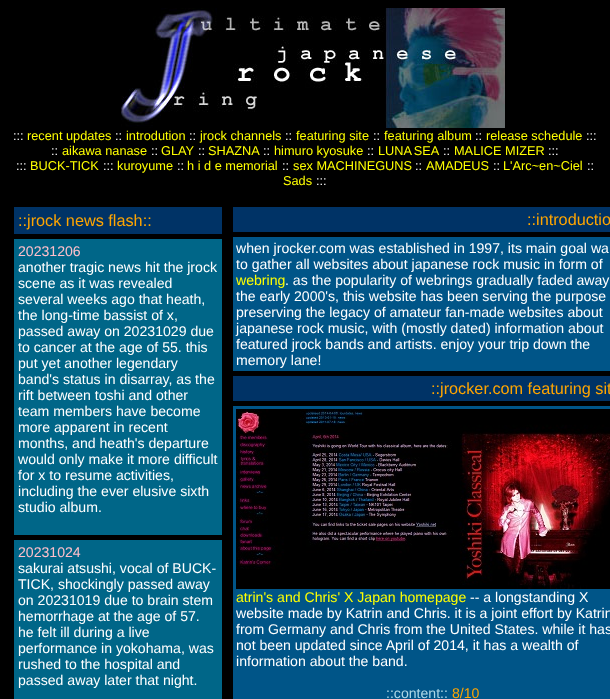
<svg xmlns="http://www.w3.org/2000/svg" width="610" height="699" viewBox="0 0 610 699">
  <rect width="100%" height="100%" fill="rgb(0,0,0)"/>
  <image x="121" y="8" width="384" height="120" href="pic1.png"/>
  <text x="13" y="140" font-family="Liberation Sans" font-size="12.75" fill="rgb(255,255,255)">:::</text>
  <text x="27" y="140" font-family="Liberation Sans" font-size="12.75" fill="rgb(255,255,0)">recent updates</text>
  <text x="115" y="140" font-family="Liberation Sans" font-size="12.75" fill="rgb(255,255,255)">::</text>
  <text x="126" y="140" font-family="Liberation Sans" font-size="12.75" fill="rgb(255,255,0)">introdution</text>
  <text x="189" y="140" font-family="Liberation Sans" font-size="12.75" fill="rgb(255,255,255)">::</text>
  <text x="200" y="140" font-family="Liberation Sans" font-size="12.75" fill="rgb(255,255,0)">jrock channels</text>
  <text x="285" y="140" font-family="Liberation Sans" font-size="12.75" fill="rgb(255,255,255)">::</text>
  <text x="296" y="140" font-family="Liberation Sans" font-size="12.75" fill="rgb(255,255,0)">featuring site</text>
  <text x="373" y="140" font-family="Liberation Sans" font-size="12.75" fill="rgb(255,255,255)">::</text>
  <text x="384" y="140" font-family="Liberation Sans" font-size="12.75" fill="rgb(255,255,0)">featuring album</text>
  <text x="475" y="140" font-family="Liberation Sans" font-size="12.75" fill="rgb(255,255,255)">::</text>
  <text x="486" y="140" font-family="Liberation Sans" font-size="12.75" fill="rgb(255,255,0)">release schedule</text>
  <g font-family="Liberation Sans" font-size="12.75" fill="rgb(255,255,255)">
    <text x="586" y="140">:::</text>
    <text x="51" y="155">::</text>
  </g>
  <text x="62" y="155" font-family="Liberation Sans" font-size="12.75" fill="rgb(255,255,0)">aikawa nanase</text>
  <text x="151" y="155" font-family="Liberation Sans" font-size="12.75" fill="rgb(255,255,255)">::</text>
  <text x="161" y="155" font-family="Liberation Sans" font-size="12.75" fill="rgb(255,255,0)">GLAY</text>
  <text x="198" y="155" font-family="Liberation Sans" font-size="12.75" fill="rgb(255,255,255)">::</text>
  <text x="208" y="155" font-family="Liberation Sans" font-size="12.75" fill="rgb(255,255,0)">SHAZNA</text>
  <text x="263" y="155" font-family="Liberation Sans" font-size="12.75" fill="rgb(255,255,255)">::</text>
  <text x="274" y="155" font-family="Liberation Sans" font-size="12.75" fill="rgb(255,255,0)">himuro kyosuke</text>
  <text x="367" y="155" font-family="Liberation Sans" font-size="12.75" fill="rgb(255,255,255)">::</text>
  <text x="378" y="155" word-spacing="-1" font-family="Liberation Sans" font-size="12.75" fill="rgb(255,255,0)">LUNA SEA</text>
  <text x="443" y="155" font-family="Liberation Sans" font-size="12.75" fill="rgb(255,255,255)">::</text>
  <text x="454" y="155" font-family="Liberation Sans" font-size="12.75" fill="rgb(255,255,0)">MALICE MIZER</text>
  <g font-family="Liberation Sans" font-size="12.75" fill="rgb(255,255,255)">
    <text x="548" y="155">:::</text>
    <text x="16" y="170">:::</text>
  </g>
  <text x="30" y="170" font-family="Liberation Sans" font-size="12.75" fill="rgb(255,255,0)">BUCK-TICK</text>
  <text x="103" y="170" font-family="Liberation Sans" font-size="12.75" fill="rgb(255,255,255)">:::</text>
  <text x="117" y="170" font-family="Liberation Sans" font-size="12.75" fill="rgb(255,255,0)">kuroyume</text>
  <text x="177" y="170" font-family="Liberation Sans" font-size="12.75" fill="rgb(255,255,255)">::</text>
  <text x="187" y="170" font-family="Liberation Sans" font-size="12.75" fill="rgb(255,255,0)">h i d e memorial</text>
  <text x="282" y="170" font-family="Liberation Sans" font-size="12.75" fill="rgb(255,255,255)">::</text>
  <text x="293" y="170" font-family="Liberation Sans" font-size="12.75" fill="rgb(255,255,0)">sex MACHINEGUNS</text>
  <text x="415" y="170" font-family="Liberation Sans" font-size="12.75" fill="rgb(255,255,255)">::</text>
  <text x="426" y="170" font-family="Liberation Sans" font-size="12.75" fill="rgb(255,255,0)">AMADEUS</text>
  <text x="493" y="170" font-family="Liberation Sans" font-size="12.75" fill="rgb(255,255,255)">::</text>
  <text x="503" y="170" font-family="Liberation Sans" font-size="12.75" fill="rgb(255,255,0)">L'Arc~en~Ciel</text>
  <text x="587" y="170" font-family="Liberation Sans" font-size="12.75" fill="rgb(255,255,255)">::</text>
  <text x="283" y="185" font-family="Liberation Sans" font-size="12.75" fill="rgb(255,255,0)">Sads</text>
  <text x="316" y="185" font-family="Liberation Sans" font-size="12.75" fill="rgb(255,255,255)">:::</text>
  <rect x="14" y="207" width="208" height="27" fill="rgb(0,51,102)"/>
  <text x="18" y="226" font-family="Liberation Sans" font-size="16.25" fill="rgb(255,165,0)">::jrock news flash::</text>
  <rect x="14" y="239" width="208" height="296" fill="rgb(0,102,136)"/>
  <text x="18" y="256" font-family="Liberation Sans" font-size="14.1" fill="rgb(255,192,203)">20231206</text>
  <g font-family="Liberation Sans" font-size="14.1" fill="rgb(255,255,255)">
    <text>
      <tspan x="18" y="272">another tragic news hit the jrock</tspan>
      <tspan x="18" y="288">scene as it was revealed</tspan>
      <tspan x="18" y="304">several weeks ago that heath,</tspan>
      <tspan x="18" y="320">the long-time bassist of x,</tspan>
      <tspan x="18" y="336">passed away on 20231029 due</tspan>
      <tspan x="18" y="352">to cancer at the age of 55. this</tspan>
      <tspan x="18" y="368">put yet another legendary</tspan>
      <tspan x="18" y="384">band's status in disarray, as the</tspan>
      <tspan x="18" y="400">rift between toshi and other</tspan>
      <tspan x="18" y="416">team members have become</tspan>
      <tspan x="18" y="432">more apparent in recent</tspan>
      <tspan x="18" y="448">months, and heath's departure</tspan>
      <tspan x="18" y="464">would only make it more difficult</tspan>
      <tspan x="18" y="480">for x to resume activities,</tspan>
      <tspan x="18" y="496">including the ever elusive sixth</tspan>
      <tspan x="18" y="512">studio album.</tspan>
    </text>
  </g>
  <rect x="14" y="540" width="208" height="159" fill="rgb(0,102,136)"/>
  <text x="18" y="557" font-family="Liberation Sans" font-size="14.1" fill="rgb(255,192,203)">20231024</text>
  <g font-family="Liberation Sans" font-size="14.1" fill="rgb(255,255,255)">
    <text>
      <tspan x="18" y="573">sakurai atsushi, vocal of BUCK-</tspan>
      <tspan x="18" y="589">TICK, shockingly passed away</tspan>
      <tspan x="18" y="605">on 20231019 due to brain stem</tspan>
      <tspan x="18" y="621">hemorrhage at the age of 57.</tspan>
      <tspan x="18" y="637">he felt ill during a live</tspan>
      <tspan x="18" y="653">performance in yokohama, was</tspan>
      <tspan x="18" y="669">rushed to the hospital and</tspan>
      <tspan x="18" y="685">passed away later that night.</tspan>
    </text>
  </g>
  <rect x="233" y="207" width="377" height="25" fill="rgb(0,51,102)"/>
  <text x="527" y="225" font-family="Liberation Sans" font-size="16.25" fill="rgb(255,165,0)">::introductio</text>
  <rect x="233" y="237" width="377" height="134" fill="rgb(0,85,136)"/>
  <g font-family="Liberation Sans" font-size="14.1" fill="rgb(255,255,255)">
    <text>
      <tspan x="236" y="253">when jrocker.com was established in 1997, its main goal wa</tspan>
      <tspan x="236" y="269">to gather all websites about japanese rock music in form of</tspan>
    </text>
  </g>
  <text x="236" y="285" font-family="Liberation Sans" font-size="14.1" fill="rgb(255,255,0)">webring</text>
  <g font-family="Liberation Sans" font-size="14.1" fill="rgb(255,255,255)">
    <text x="285" y="285">. as the popularity of webrings gradually faded away</text>
    <text>
      <tspan x="236" y="301">the early 2000's, this website has been serving the purpose</tspan>
      <tspan x="236" y="317">preserving the legacy of amateur fan-made websites about</tspan>
      <tspan x="236" y="333">japanese rock music, with (mostly dated) information about</tspan>
      <tspan x="236" y="349">featured jrock bands and artists. enjoy your trip down the</tspan>
      <tspan x="236" y="365">memory lane!</tspan>
    </text>
  </g>
  <rect x="233" y="376" width="377" height="25" fill="rgb(0,51,102)"/>
  <text x="431" y="394" font-family="Liberation Sans" font-size="16.25" fill="rgb(255,165,0)">::jrocker.com featuring sit</text>
  <rect x="233" y="406" width="377" height="293" fill="rgb(0,85,136)"/>
  <image x="236" y="409" width="374" height="180" href="pic2.png"/>
  <text x="236" y="602" font-family="Liberation Sans" font-size="14.1" fill="rgb(255,255,0)">atrin's and Chris' X Japan homepage</text>
  <g font-family="Liberation Sans" font-size="14.1" fill="rgb(255,255,255)">
    <text x="470" y="602">-- a longstanding X</text>
    <text>
      <tspan x="236" y="618">website made by Katrin and Chris. it is a joint effort by Katrin</tspan>
      <tspan x="236" y="634">from Germany and Chris from the United States. while it has</tspan>
      <tspan x="236" y="650">not been updated since April of 2014, it has a wealth of</tspan>
      <tspan x="236" y="666">information about the band.</tspan>
    </text>
  </g>
  <text x="386" y="698" font-family="Liberation Sans" font-size="14.1" fill="rgb(173,216,230)">::content::</text>
  <text x="452" y="698" font-family="Liberation Sans" font-size="14.1" fill="rgb(255,165,0)">8/10</text>
</svg>
